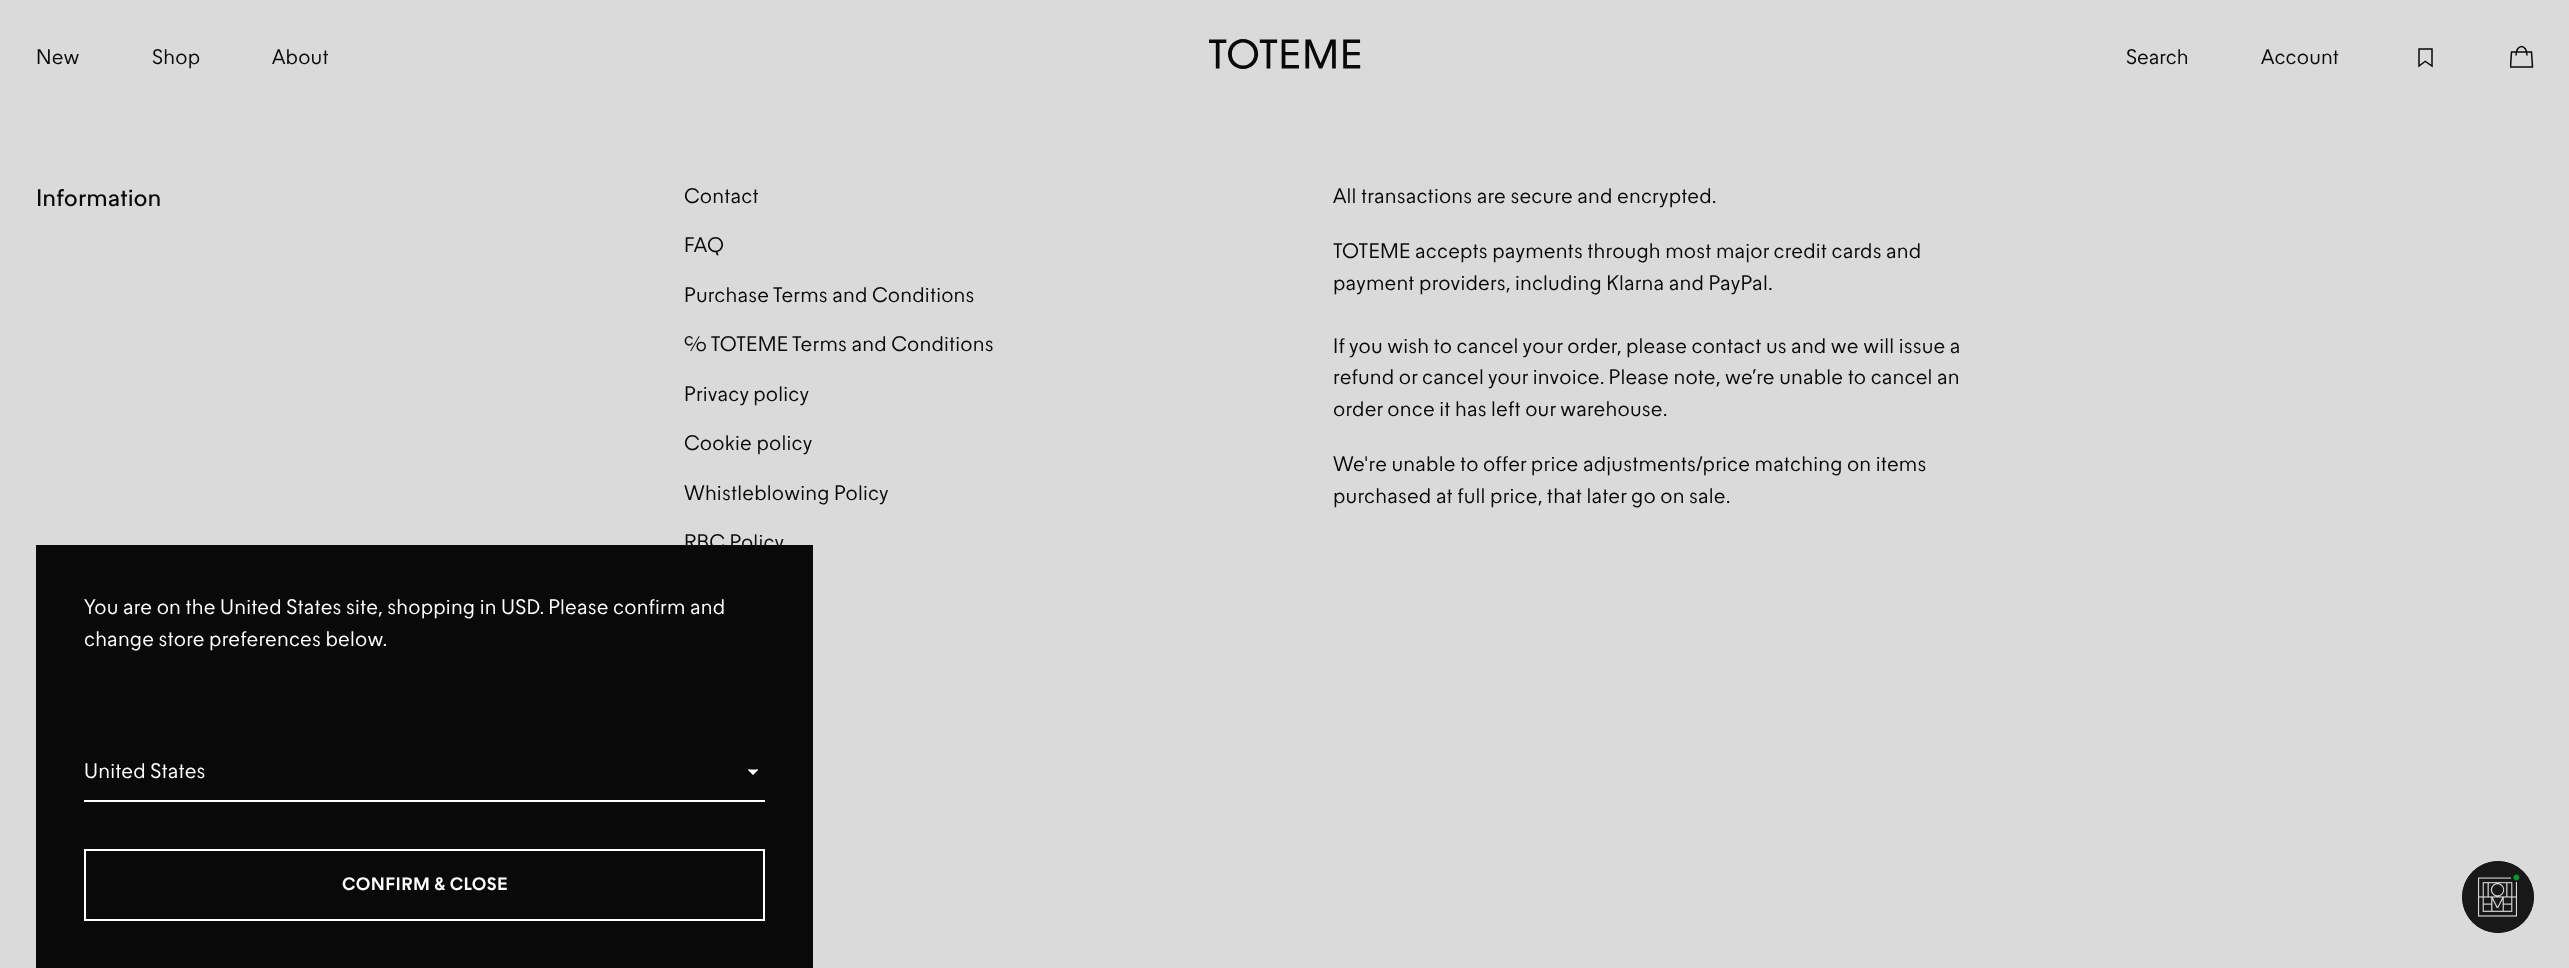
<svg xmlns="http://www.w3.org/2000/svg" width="2569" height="968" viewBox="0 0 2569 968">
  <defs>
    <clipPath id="clip1"><rect x="2510" y="45" width="24" height="24"/></clipPath>
  </defs>
  <rect width="100%" height="100%" fill="rgb(218,218,218)"/>
  <g font-family="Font" font-size="21" font-weight="300" letter-spacing="0.2" fill="rgb(9,9,9)">
    <text x="36" y="64">New</text>
    <text x="152" y="64">Shop</text>
    <text x="272" y="64">About</text>
  </g>
  <image x="1209" y="39" width="152" height="30" href="pic1.png"/>
  <text x="2126" y="64" font-family="Font" font-size="21" font-weight="300" fill="rgb(9,9,9)">Search</text>
  <text x="2261" y="64" font-family="Font" font-size="21" font-weight="300" letter-spacing="0.2" fill="rgb(9,9,9)">Account</text>
  <path d="M2425 61.5L2419 66V49H2432V66L2425.5 61.5Z" fill="none" stroke="rgb(9,9,9)" stroke-width="1.5"/>
  <g clip-path="url(#clip1)">
    <path d="M2511.5 52H2531.5L2532.5 67H2510.5Z" fill="none" stroke="rgb(9,9,9)" stroke-width="1.5"/>
  </g>
  <path d="M2527 55.5C2527 43.5 2516 43.5 2516 55.5" fill="none" stroke="rgb(9,9,9)" stroke-width="1.5"/>
  <text x="36" y="206" font-family="Font" font-size="24" fill="rgb(9,9,9)">Information</text>
  <g font-family="Font" font-size="21" font-weight="300" letter-spacing="0.2" fill="rgb(9,9,9)">
    <text x="684" y="203">Contact</text>
    <text x="684" y="252">FAQ</text>
    <text x="684" y="302">Purchase Terms and Conditions</text>
    <text x="684" y="351">℅ TOTEME Terms and Conditions</text>
    <text x="684" y="401">Privacy policy</text>
    <text x="684" y="450">Cookie policy</text>
    <text x="684" y="500">Whistleblowing Policy</text>
    <text x="684" y="549">RBC Policy</text>
    <text x="1333" y="203">All transactions are secure and encrypted.</text>
    <text>
      <tspan x="1333" y="258">TOTEME accepts payments through most major credit cards and</tspan>
      <tspan x="1333" y="290">payment providers, including Klarna and PayPal.</tspan>
    </text>
    <text>
      <tspan x="1333" y="353">If you wish to cancel your order, please contact us and we will issue a</tspan>
      <tspan x="1333" y="384">refund or cancel your invoice. Please note, we’re unable to cancel an</tspan>
      <tspan x="1333" y="416">order once it has left our warehouse.</tspan>
    </text>
    <text>
      <tspan x="1333" y="471">We're unable to offer price adjustments/price matching on items</tspan>
      <tspan x="1333" y="503">purchased at full price, that later go on sale.</tspan>
    </text>
  </g>
  <rect x="36" y="545" width="777" height="423" fill="rgb(9,9,9)"/>
  <g font-family="Font" font-size="21" font-weight="300" letter-spacing="0.2" fill="rgb(255,255,255)">
    <text>
      <tspan x="84" y="614">You are on the United States site, shopping in USD. Please confirm and</tspan>
      <tspan x="84" y="646">change store preferences below.</tspan>
    </text>
  </g>
  <rect x="84" y="800" width="681" height="2" fill="rgb(255,255,255)"/>
  <text x="84" y="778" font-family="Font" font-size="21" font-weight="300" letter-spacing="0.2" fill="rgb(255,255,255)">United States</text>
  <image x="748" y="769" width="10" height="6" href="pic2.png"/>
  <rect x="85" y="850" width="679" height="70" fill="none" stroke="rgb(255,255,255)" stroke-width="2"/>
  <text x="342" y="890" font-family="Font" font-size="18" font-weight="bold" letter-spacing="0.4" fill="rgb(255,255,255)">CONFIRM &amp; CLOSE</text>
  <circle cx="2498" cy="897" r="36" fill="rgb(24,24,24)"/>
  <image x="2462" y="861" width="72" height="72" href="pic3.png"/>
</svg>
